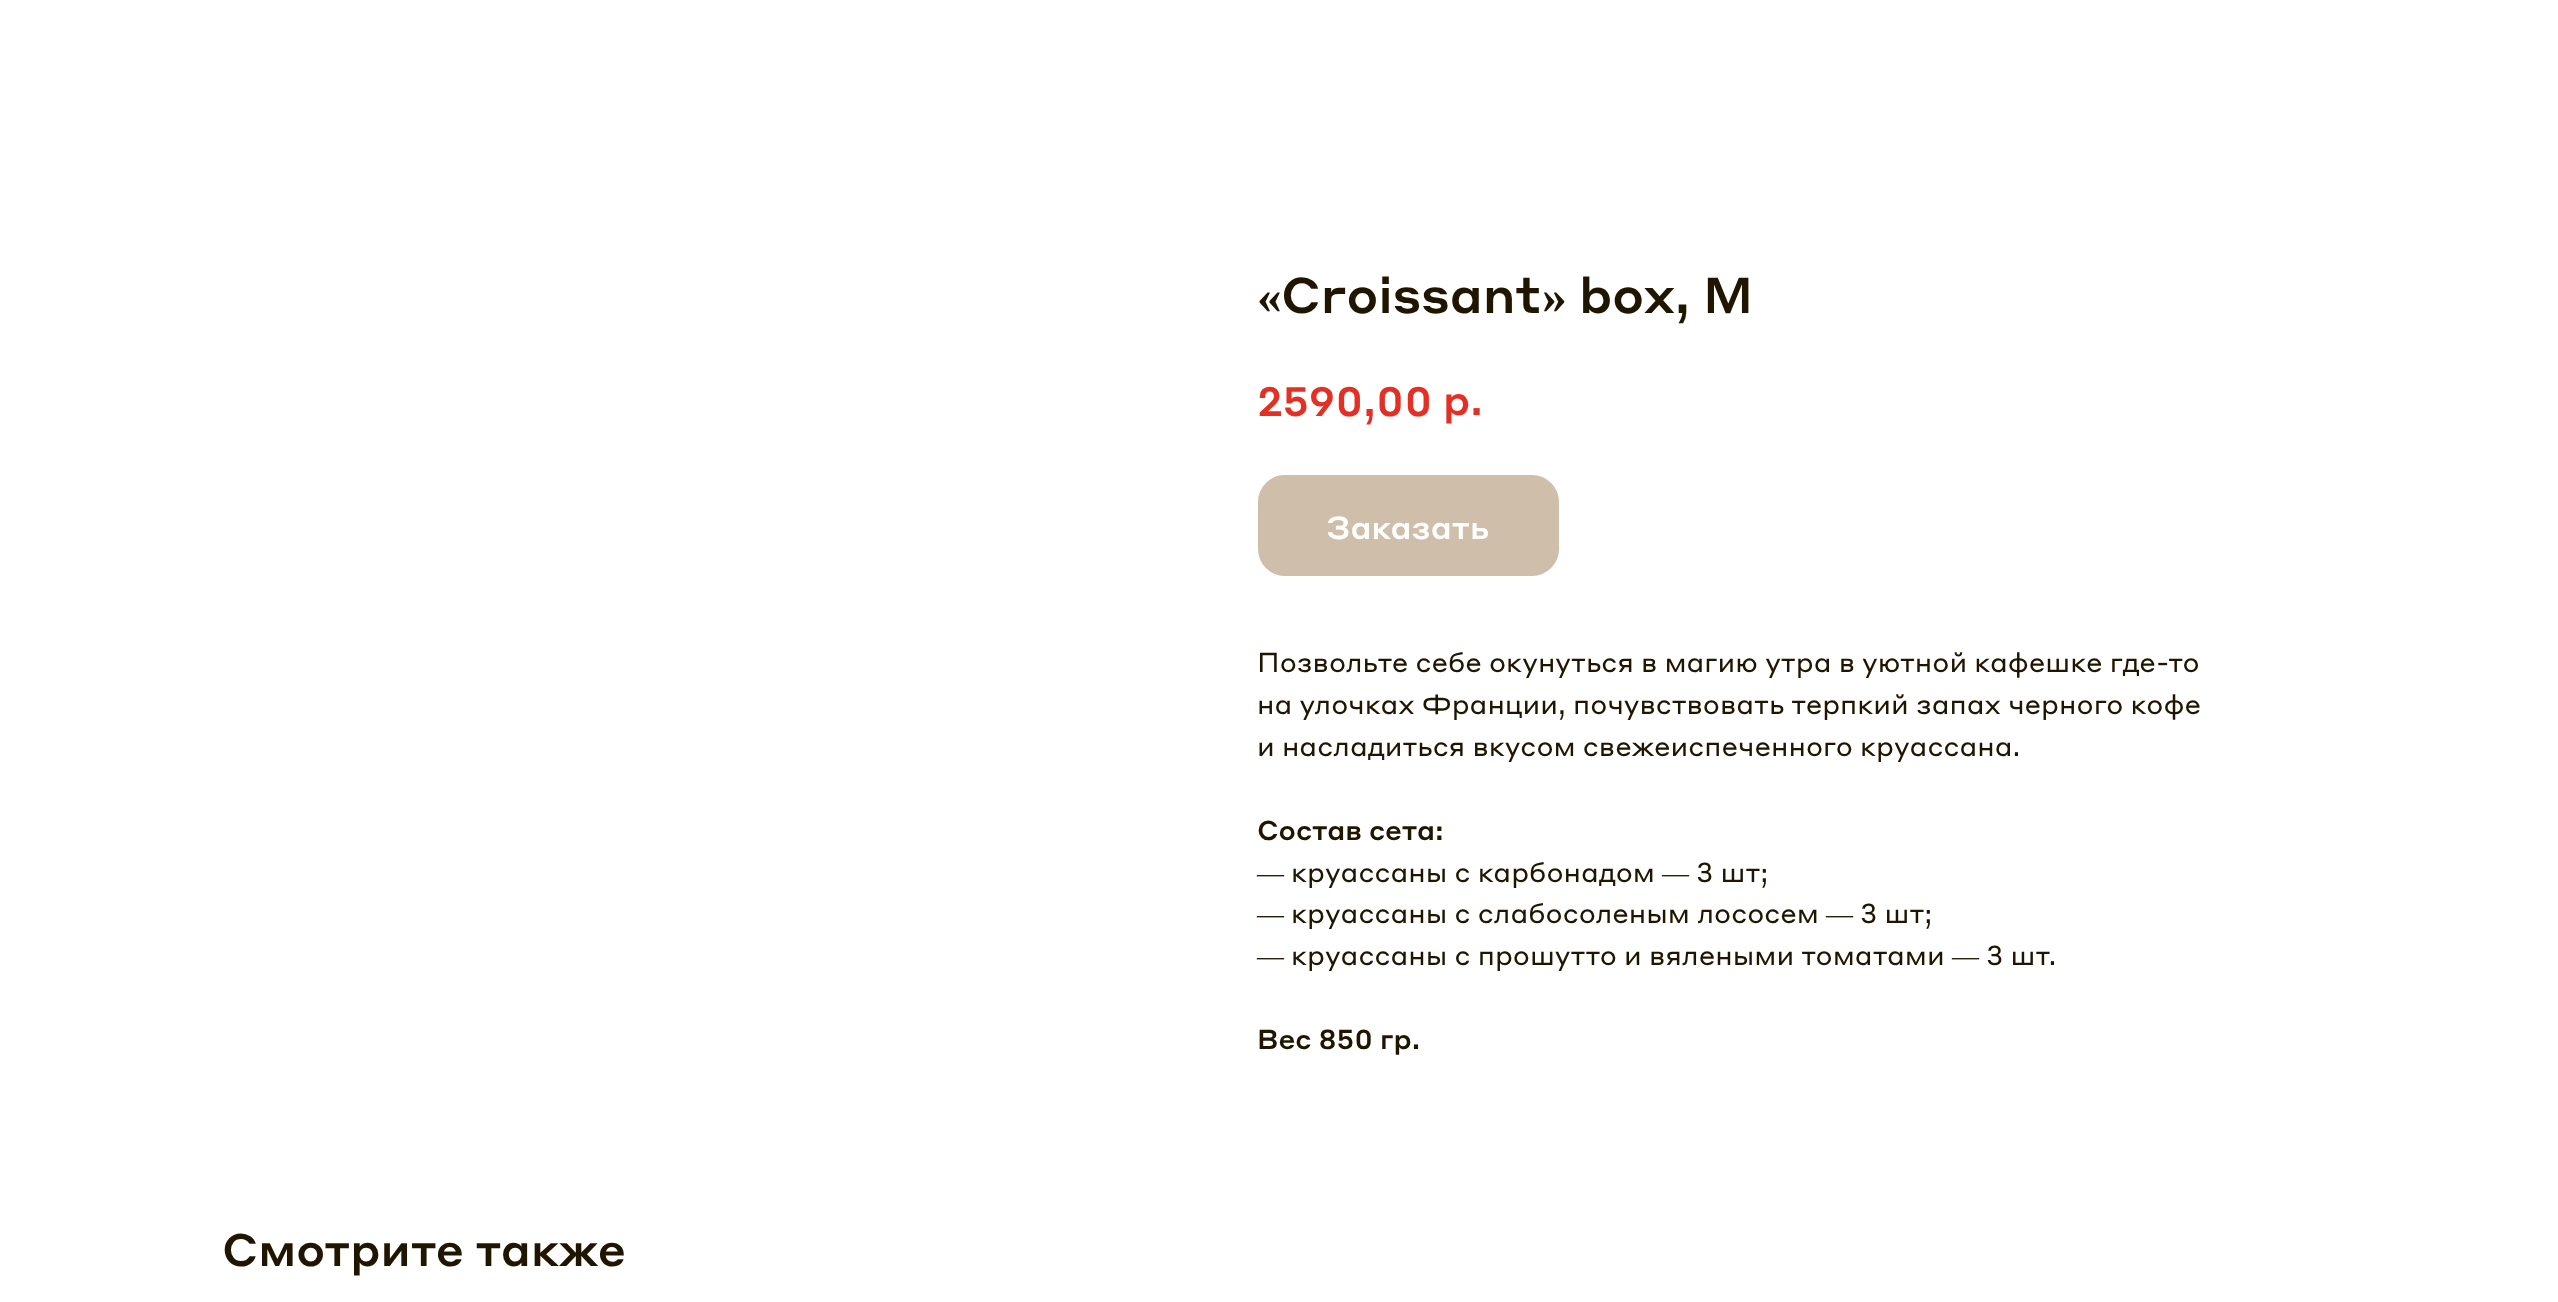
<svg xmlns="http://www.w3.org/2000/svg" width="2558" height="1302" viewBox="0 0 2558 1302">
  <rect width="100%" height="100%" fill="rgb(255,255,255)"/>
  <text x="1257" y="313" font-family="Liberation Serif" font-size="49.5" font-weight="bold" fill="rgb(32,22,0)">«</text>
  <text x="1281" y="313" font-family="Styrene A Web" font-size="49.5" font-weight="500" fill="rgb(32,22,0)">Croissant</text>
  <text x="1542" y="313" font-family="Liberation Serif" font-size="49.5" font-weight="bold" fill="rgb(32,22,0)">»</text>
  <text x="1579" y="313" font-family="Styrene A Web" font-size="49.5" font-weight="500" fill="rgb(32,22,0)">box, М</text>
  <g font-family="Styrene A Web" font-size="40.5" font-weight="500" fill="rgb(228,48,36)">
    <text x="1257" y="416">2590,00</text>
    <text x="1443" y="415">р.</text>
  </g>
  <rect x="1259" y="476" width="299" height="99" rx="26" fill="rgb(207,190,169)" stroke="rgb(207,190,169)" stroke-width="2"/>
  <text x="1326" y="539" font-family="Styrene A Web" font-size="31.5" font-weight="500" fill="rgb(255,255,255)">Заказать</text>
  <g font-family="Styrene A Web" font-size="27" fill="rgb(32,22,0)">
    <text>
      <tspan x="1257" y="672">Позвольте себе окунуться в магию утра в уютной кафешке где-то</tspan>
      <tspan x="1257" y="714">на улочках Франции, почувствовать терпкий запах черного кофе</tspan>
      <tspan x="1257" y="756">и насладиться вкусом свежеиспеченного круассана.</tspan>
    </text>
  </g>
  <text x="1257" y="840" font-family="Styrene A Web" font-size="27" font-weight="500" fill="rgb(32,22,0)">Состав сета:</text>
  <text x="1257" y="882" font-family="Liberation Serif" font-size="27" fill="rgb(32,22,0)">—</text>
  <text x="1291" y="882" font-family="Styrene A Web" font-size="27" fill="rgb(32,22,0)">круассаны с карбонадом</text>
  <text x="1662" y="882" font-family="Liberation Serif" font-size="27" fill="rgb(32,22,0)">—</text>
  <text x="1696" y="882" font-family="Styrene A Web" font-size="27" fill="rgb(32,22,0)">3 шт;</text>
  <text x="1257" y="923" font-family="Liberation Serif" font-size="27" fill="rgb(32,22,0)">—</text>
  <text x="1291" y="923" font-family="Styrene A Web" font-size="27" fill="rgb(32,22,0)">круассаны с слабосоленым лососем</text>
  <text x="1826" y="923" font-family="Liberation Serif" font-size="27" fill="rgb(32,22,0)">—</text>
  <text x="1860" y="923" font-family="Styrene A Web" font-size="27" fill="rgb(32,22,0)">3 шт;</text>
  <text x="1257" y="965" font-family="Liberation Serif" font-size="27" fill="rgb(32,22,0)">—</text>
  <text x="1291" y="965" font-family="Styrene A Web" font-size="27" fill="rgb(32,22,0)">круассаны с прошутто и вялеными томатами</text>
  <text x="1952" y="965" font-family="Liberation Serif" font-size="27" fill="rgb(32,22,0)">—</text>
  <text x="1986" y="965" font-family="Styrene A Web" font-size="27" fill="rgb(32,22,0)">3 шт.</text>
  <text x="1257" y="1049" font-family="Styrene A Web" font-size="27" font-weight="500" fill="rgb(32,22,0)">Вес 850 гр.</text>
  <text x="222" y="1266" font-family="Styrene A Web" font-size="45" font-weight="500" fill="rgb(32,22,0)">Смотрите также</text>
</svg>
